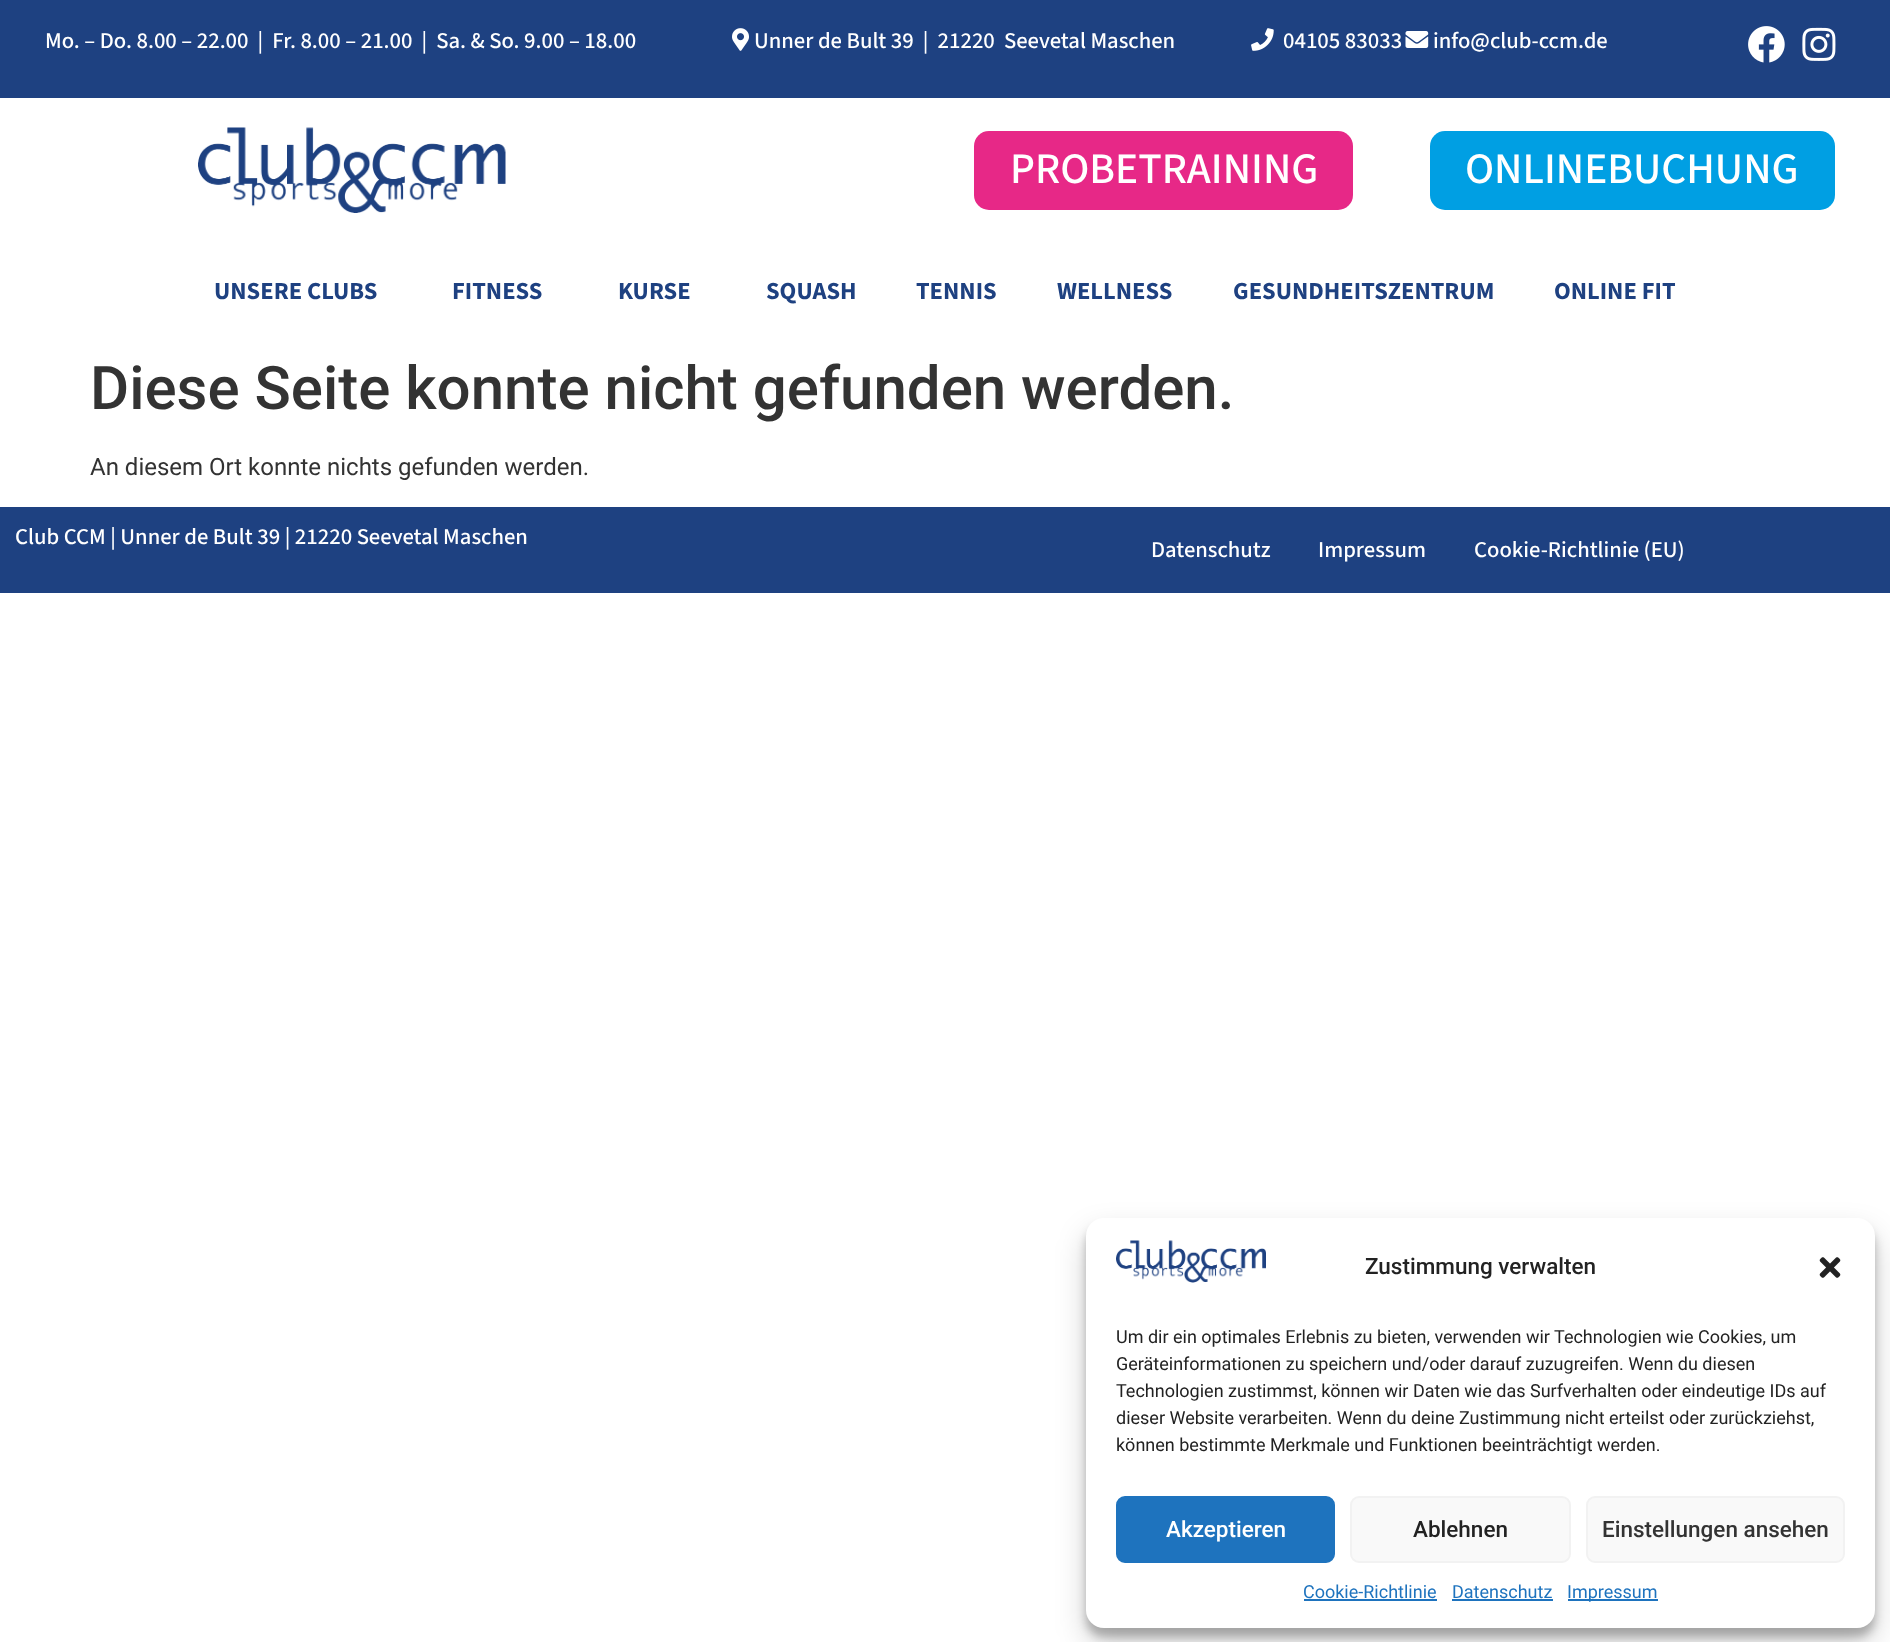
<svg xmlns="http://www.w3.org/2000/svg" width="1890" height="1642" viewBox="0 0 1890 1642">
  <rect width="100%" height="100%" fill="rgb(255,255,255)"/>
  <rect x="0" y="0" width="1890" height="98" fill="rgb(30,65,129)"/>
  <text x="45" y="48" font-family="'Source Sans 3'" font-size="22.7" font-weight="500" fill="rgb(255,255,255)" xml:space="preserve">Mo. – Do. 8.00 – 22.00  |  Fr. 8.00 – 21.00  |  Sa. &amp; So. 9.00 – 18.00</text>
  <image x="732" y="28" width="17" height="23" href="pic1.png"/>
  <text x="754" y="48" font-family="'Source Sans 3'" font-size="22.7" font-weight="500" fill="rgb(255,255,255)" xml:space="preserve">Unner de Bult 39  |  21220  Seevetal Maschen</text>
  <image x="1251" y="28" width="23" height="23" href="pic2.png"/>
  <text x="1283" y="48" font-family="'Source Sans 3'" font-size="22.7" font-weight="500" fill="rgb(255,255,255)">04105 83033</text>
  <image x="1405" y="31" width="24" height="17" href="pic3.png"/>
  <text x="1433" y="48" font-family="'Source Sans 3'" font-size="22.7" font-weight="500" fill="rgb(255,255,255)">info@club-ccm.de</text>
  <image x="1748" y="26" width="37" height="37" href="pic4.png"/>
  <image x="1802" y="27" width="34" height="34" href="pic5.png"/>
  <image x="198" y="127" width="308" height="86" href="pic6.png"/>
  <rect x="974" y="131" width="379" height="79" rx="15" fill="rgb(231,40,135)"/>
  <text x="1010" y="183" font-family="'Source Sans 3'" font-size="43.5" font-weight="500" fill="rgb(255,255,255)">PROBETRAINING</text>
  <rect x="1430" y="131" width="405" height="79" rx="15" fill="rgb(0,159,227)"/>
  <text x="1465" y="183" font-family="'Source Sans 3'" font-size="43.5" font-weight="500" fill="rgb(255,255,255)">ONLINEBUCHUNG</text>
  <g font-family="'Source Sans 3'" font-size="24.5" font-weight="bold" fill="rgb(30,65,129)">
    <text x="214" y="299">UNSERE CLUBS</text>
    <text x="452" y="299">FITNESS</text>
    <text x="618" y="299">KURSE</text>
    <text x="766" y="299">SQUASH</text>
    <text x="916" y="299">TENNIS</text>
    <text x="1057" y="299">WELLNESS</text>
    <text x="1233" y="299">GESUNDHEITSZENTRUM</text>
    <text x="1554" y="299">ONLINE FIT</text>
  </g>
  <text x="90" y="409" font-family="Roboto" font-size="60" font-weight="500" fill="rgb(51,51,51)">Diese Seite konnte nicht gefunden werden.</text>
  <text x="90" y="475" font-family="Roboto" font-size="24" fill="rgb(51,51,51)">An diesem Ort konnte nichts gefunden werden.</text>
  <rect x="0" y="507" width="1890" height="86" fill="rgb(30,65,129)"/>
  <g font-family="'Source Sans 3'" font-size="22.7" font-weight="500" fill="rgb(255,255,255)">
    <text x="15" y="544">Club CCM | Unner de Bult 39 | 21220 Seevetal Maschen</text>
    <text x="1151" y="557">Datenschutz</text>
    <text x="1318" y="557">Impressum</text>
    <text x="1474" y="557">Cookie-Richtlinie (EU)</text>
  </g>
  <rect x="1086" y="1227" width="789" height="410" rx="18" fill="rgba(0,0,0,0.23)" filter="blur(4.5px)"/>
  <rect x="1086" y="1233" width="789" height="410" rx="18" fill="rgba(0,0,0,0.19)" filter="blur(15px)"/>
  <rect x="1086" y="1218" width="789" height="410" rx="18" fill="rgb(255,255,255)"/>
  <image x="1116" y="1240" width="150" height="43" href="pic7.png"/>
  <text x="1365" y="1274" font-family="Roboto" font-size="22.5" font-weight="500" fill="rgb(34,34,34)">Zustimmung verwalten</text>
  <image x="1819" y="1257" width="22" height="21" href="pic8.png"/>
  <g font-family="Roboto" font-size="18" fill="rgb(34,34,34)">
    <text>
      <tspan x="1116" y="1343">Um dir ein optimales Erlebnis zu bieten, verwenden wir Technologien wie Cookies, um</tspan>
      <tspan x="1116" y="1370">Geräteinformationen zu speichern und/oder darauf zuzugreifen. Wenn du diesen</tspan>
      <tspan x="1116" y="1397">Technologien zustimmst, können wir Daten wie das Surfverhalten oder eindeutige IDs auf</tspan>
      <tspan x="1116" y="1424">dieser Website verarbeiten. Wenn du deine Zustimmung nicht erteilst oder zurückziehst,</tspan>
      <tspan x="1116" y="1451">können bestimmte Merkmale und Funktionen beeinträchtigt werden.</tspan>
    </text>
  </g>
  <rect x="1117" y="1497" width="217" height="65" rx="8" fill="rgb(30,115,190)" stroke="rgb(30,115,190)" stroke-width="2"/>
  <text x="1166" y="1537" font-family="Roboto" font-size="22.5" font-weight="500" fill="rgb(255,255,255)">Akzeptieren</text>
  <rect x="1351" y="1497" width="219" height="65" rx="8" fill="rgb(249,249,249)" stroke="rgb(242,242,242)" stroke-width="2"/>
  <text x="1413" y="1537" font-family="Roboto" font-size="22.5" font-weight="500" fill="rgb(34,34,34)">Ablehnen</text>
  <rect x="1587" y="1497" width="257" height="65" rx="8" fill="rgb(249,249,249)" stroke="rgb(242,242,242)" stroke-width="2"/>
  <text x="1602" y="1537" font-family="Roboto" font-size="22.5" font-weight="500" fill="rgb(51,51,51)">Einstellungen ansehen</text>
  <text x="1303" y="1598" font-family="Roboto" font-size="18" fill="rgb(30,115,190)">Cookie-Richtlinie</text>
  <rect x="1304" y="1599" width="133" height="2" fill="rgb(30,115,190)"/>
  <text x="1452" y="1598" font-family="Roboto" font-size="18" fill="rgb(30,115,190)">Datenschutz</text>
  <rect x="1452" y="1599" width="101" height="2" fill="rgb(30,115,190)"/>
  <rect x="1568" y="1599" width="90" height="2" fill="rgb(30,115,190)"/>
  <text x="1567" y="1598" font-family="Roboto" font-size="18" fill="rgb(30,115,190)">Impressum</text>
</svg>
